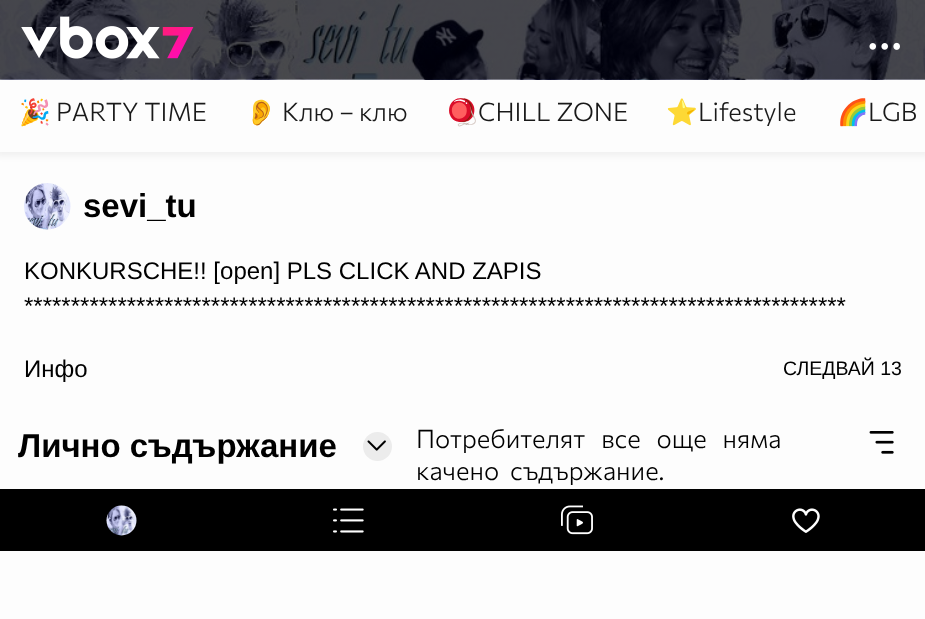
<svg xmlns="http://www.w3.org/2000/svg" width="925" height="619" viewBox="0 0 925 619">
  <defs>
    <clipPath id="clip1"><path d="M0 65H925V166H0ZM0 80H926V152H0Z" clip-rule="evenodd"/></clipPath>
  </defs>
  <rect width="100%" height="100%" fill="rgb(253,253,253)"/>
  <g clip-path="url(#clip1)">
    <rect x="-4" y="75" width="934" height="81" fill="rgba(0,0,0,0.05)" filter="blur(3px)"/>
  </g>
  <rect x="0" y="79" width="925" height="1" fill="rgb(26,26,26)"/>
  <text x="19" y="121" font-family="Noto Color Emoji" font-size="25.5" fill="rgb(25,25,25)">🎉</text>
  <text x="56" y="121" word-spacing="1" font-family="Commissioner" font-size="25.5" font-weight="300" fill="rgb(25,25,25)">PARTY TIME</text>
  <text x="245" y="121" font-family="Noto Color Emoji" font-size="25.5" fill="rgb(25,25,25)">👂</text>
  <text x="282" y="121" font-family="Commissioner" font-size="25.5" font-weight="300" fill="rgb(25,25,25)">Клю – клю</text>
  <text x="446" y="121" font-family="Noto Color Emoji" font-size="25.5" fill="rgb(25,25,25)">🪀</text>
  <text x="478" y="121" word-spacing="1" font-family="Commissioner" font-size="25.5" font-weight="300" fill="rgb(25,25,25)">CHILL ZONE</text>
  <text x="666" y="121" font-family="Noto Color Emoji" font-size="25.5" fill="rgb(25,25,25)">⭐</text>
  <text x="698" y="121" font-family="Commissioner" font-size="25.5" font-weight="300" fill="rgb(25,25,25)">Lifestyle</text>
  <text x="837" y="121" font-family="Noto Color Emoji" font-size="25.5" fill="rgb(25,25,25)">🌈</text>
  <text x="868" y="121" font-family="Commissioner" font-size="25.5" font-weight="300" fill="rgb(25,25,25)">LGB</text>
  <rect x="0" y="79" width="925" height="1" fill="rgba(0,0,0,0.35)"/>
  <image x="0" y="0" width="925" height="80" href="pic1.png"/>
  <image x="21" y="16" width="173" height="43" href="pic2.png"/>
  <image x="869" y="42" width="31" height="8" href="pic3.png"/>
  <image x="24" y="183" width="47" height="47" href="pic4.png"/>
  <text x="83" y="217" font-family="Liberation Sans" font-size="33" font-weight="bold" fill="rgb(0,0,0)">sevi_tu</text>
  <g font-family="Liberation Sans" font-size="24" fill="rgb(0,0,0)">
    <text>
      <tspan x="24" y="279">KONKURSCHE!! [open] PLS CLICK AND ZAPIS</tspan>
      <tspan x="24" y="314">****************************************************************************************</tspan>
    </text>
    <text x="24" y="377">Инфо</text>
  </g>
  <text x="783" y="375" font-family="Liberation Sans" font-size="19.5" fill="rgb(0,0,0)">СЛЕДВАЙ 13</text>
  <text x="18" y="457" font-family="Liberation Sans" font-size="33" font-weight="bold" fill="rgb(0,0,0)">Лично съдържание</text>
  <circle cx="377.5" cy="446.5" r="14.5" fill="rgb(236,236,236)"/>
  <image x="367" y="440" width="19" height="11" href="pic5.png"/>
  <image x="869" y="431" width="25" height="23" href="pic6.png"/>
  <g font-family="Commissioner" font-size="25.5" font-weight="300" fill="rgb(0,0,0)">
    <text>
      <tspan x="416" y="448" word-spacing="11">Потребителят все още няма</tspan>
      <tspan x="416" y="480" word-spacing="6">качено съдържание.</tspan>
    </text>
  </g>
  <rect x="0" y="489" width="925" height="62" fill="rgb(0,0,0)"/>
  <image x="106" y="505" width="31" height="31" href="pic7.png"/>
  <image x="333" y="508" width="31" height="25" href="pic8.png"/>
  <image x="561" y="505" width="32" height="30" href="pic9.png"/>
  <image x="792" y="508" width="28" height="25" href="pic10.png"/>
</svg>
